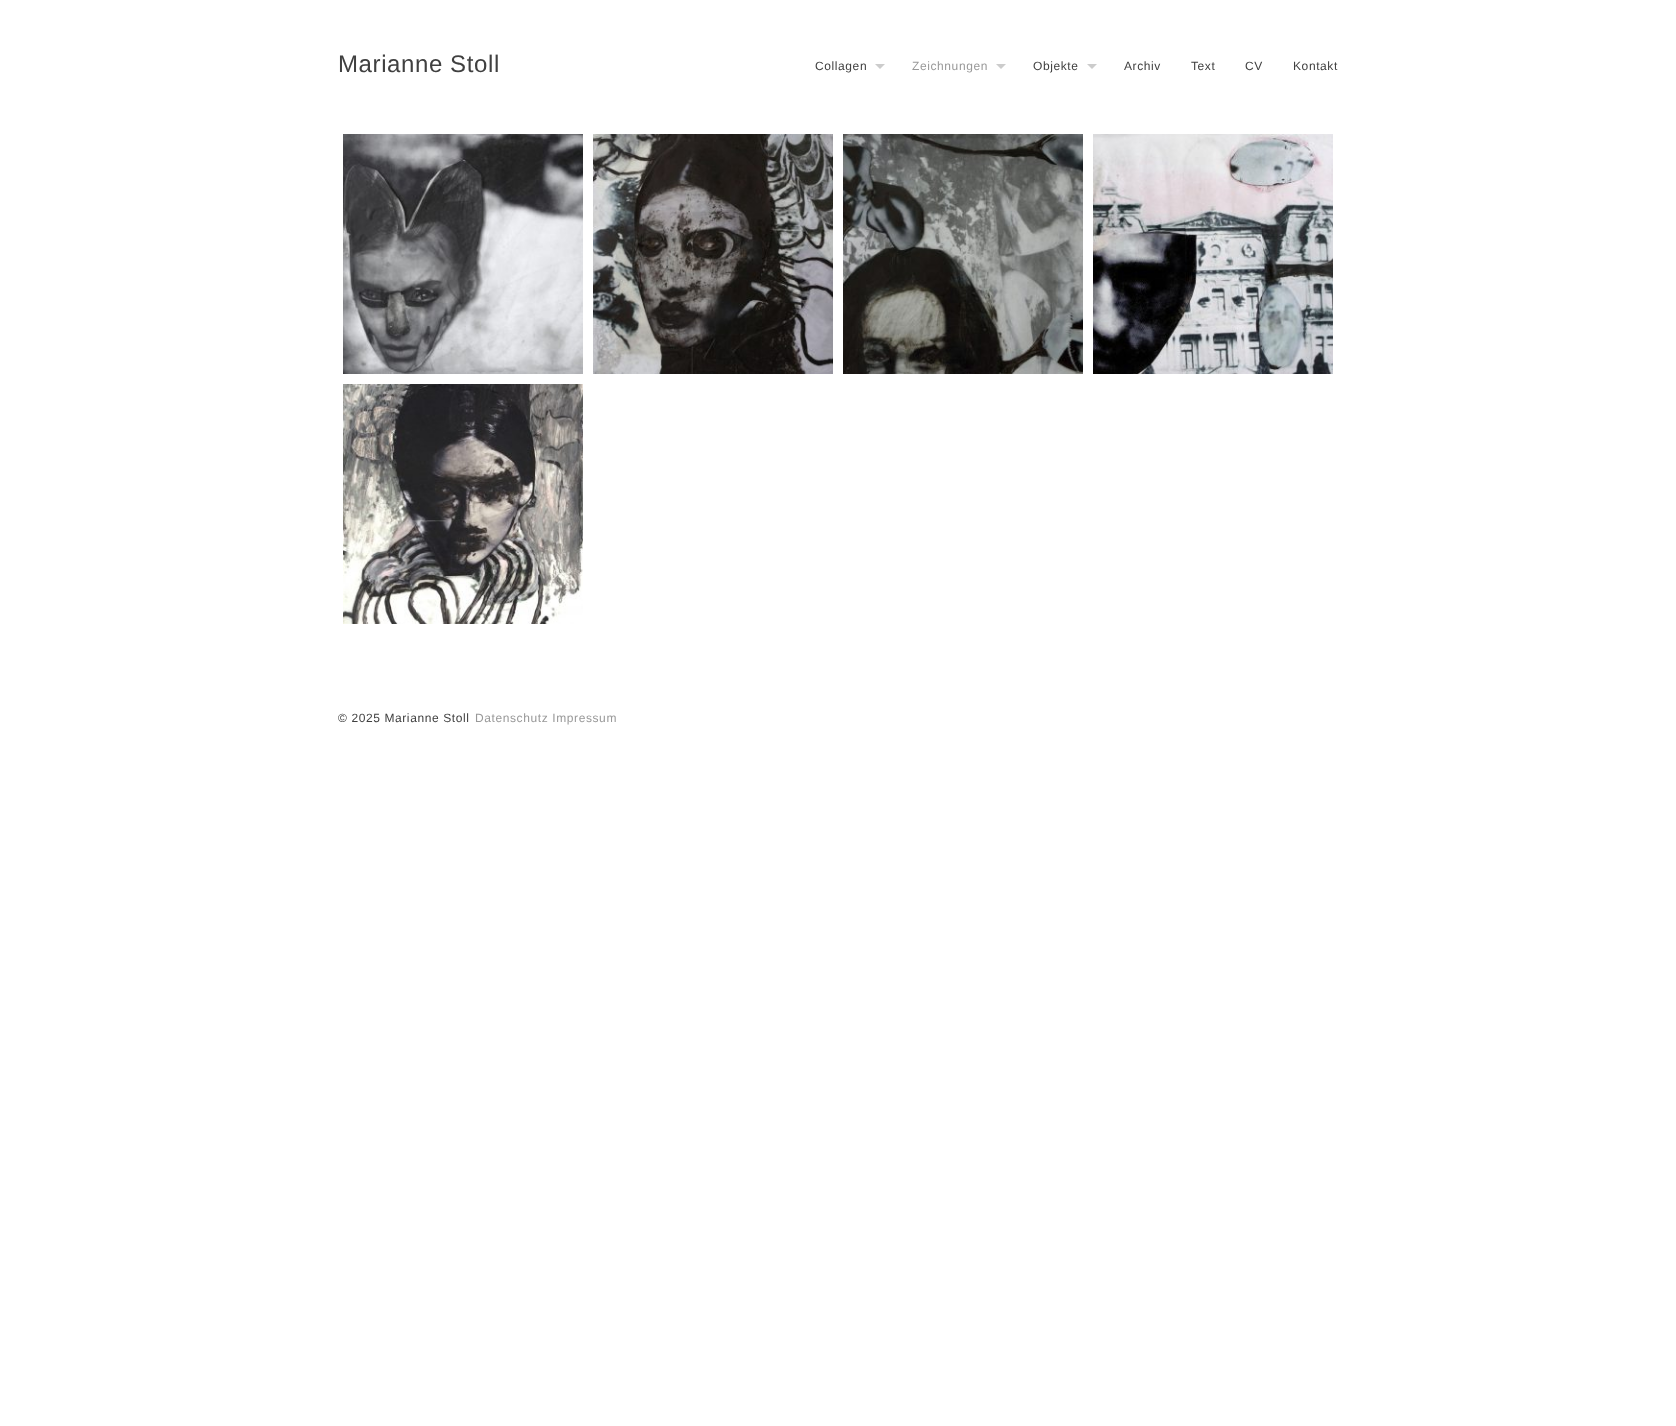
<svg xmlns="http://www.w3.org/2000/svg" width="1676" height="1426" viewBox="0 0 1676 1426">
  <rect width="100%" height="100%" fill="rgb(255,255,255)"/>
  <text x="338" y="72" font-family="Liberation Sans" font-size="24" letter-spacing="0.6" fill="rgb(64,64,64)">Marianne Stoll</text>
  <text x="815" y="70" font-family="Liberation Sans" font-size="12" letter-spacing="0.6" fill="rgb(64,64,64)">Collagen</text>
  <path d="M875 64H885L880 69Z" fill="rgb(204,204,204)"/>
  <text x="912" y="70" font-family="Liberation Sans" font-size="12" letter-spacing="0.6" fill="rgb(153,153,153)">Zeichnungen</text>
  <path d="M996 64H1006L1001 69Z" fill="rgb(204,204,204)"/>
  <text x="1033" y="70" font-family="Liberation Sans" font-size="12" letter-spacing="0.6" fill="rgb(64,64,64)">Objekte</text>
  <path d="M1087 64H1097L1092 69Z" fill="rgb(204,204,204)"/>
  <g font-family="Liberation Sans" font-size="12" letter-spacing="0.6" fill="rgb(64,64,64)">
    <text x="1124" y="70">Archiv</text>
    <text x="1191" y="70">Text</text>
    <text x="1245" y="70">CV</text>
    <text x="1293" y="70">Kontakt</text>
  </g>
  <image x="343" y="134" width="240" height="240" href="pic1.png"/>
  <image x="593" y="134" width="240" height="240" href="pic2.png"/>
  <image x="843" y="134" width="240" height="240" href="pic3.png"/>
  <image x="1093" y="134" width="240" height="240" href="pic4.png"/>
  <image x="343" y="384" width="240" height="240" href="pic5.png"/>
  <text x="338" y="722" font-family="Liberation Sans" font-size="12" letter-spacing="0.6" fill="rgb(64,64,64)">© 2025 Marianne Stoll</text>
  <text x="475" y="722" font-family="Liberation Sans" font-size="12" letter-spacing="0.6" fill="rgb(153,153,153)">Datenschutz Impressum</text>
</svg>
